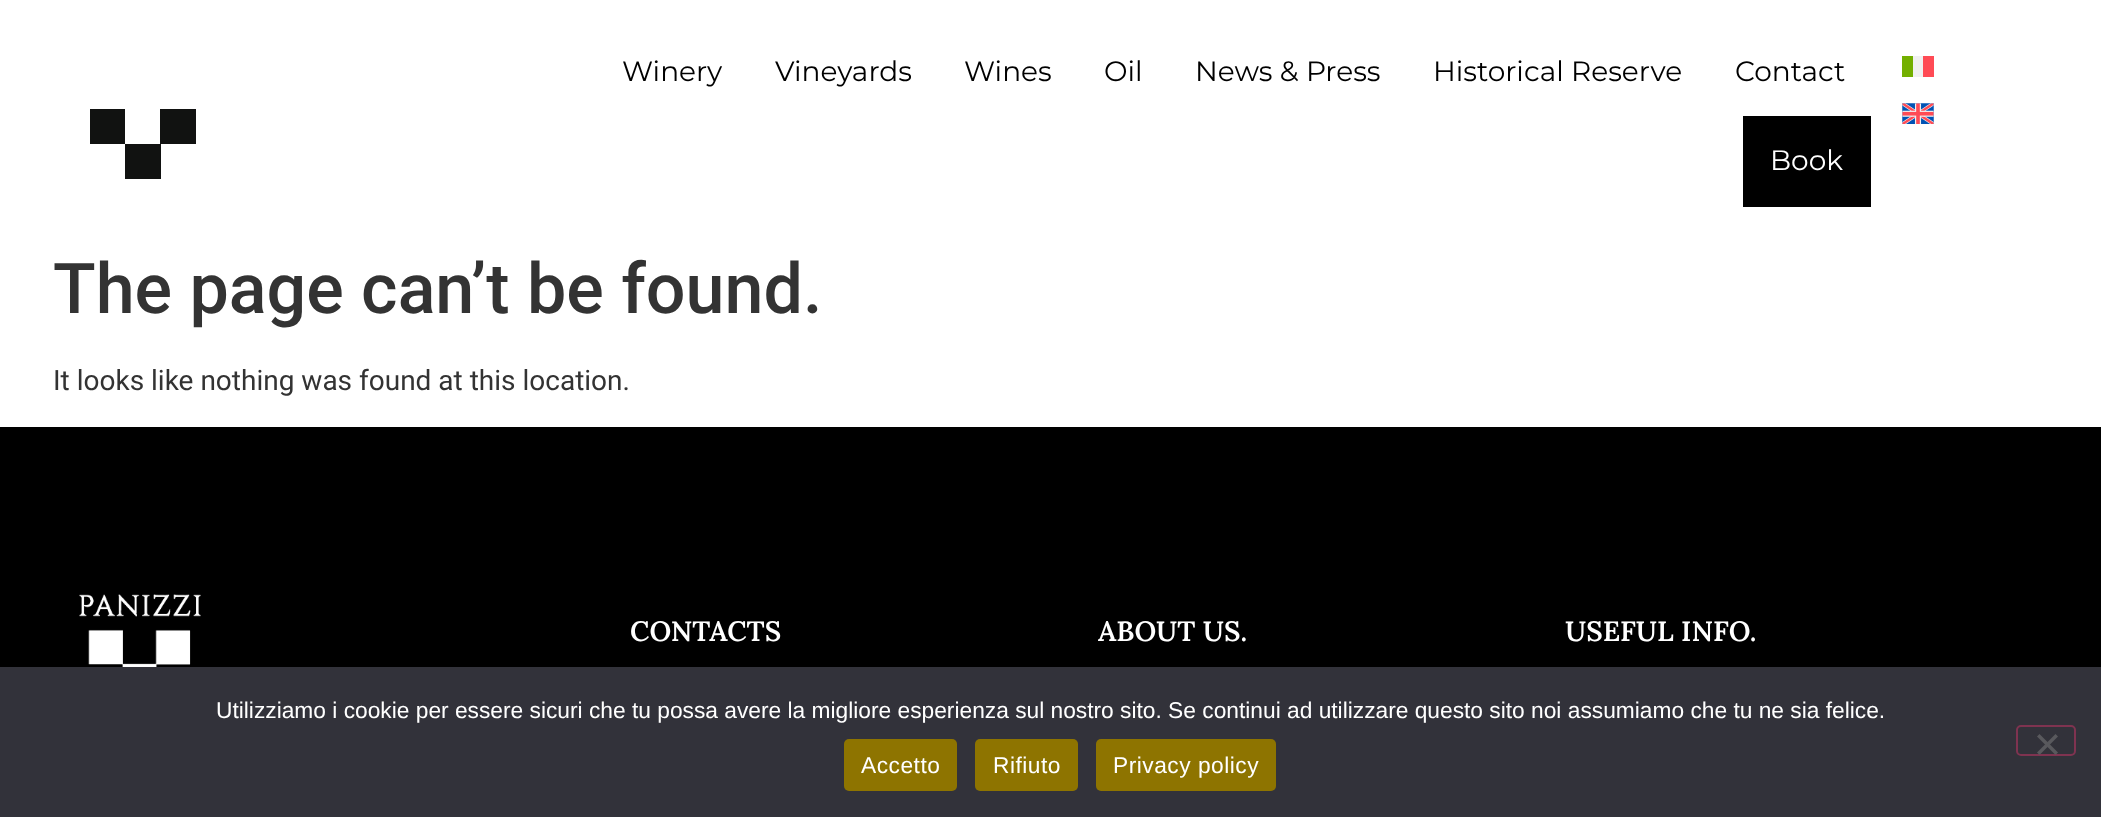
<svg xmlns="http://www.w3.org/2000/svg" width="2101" height="817" viewBox="0 0 2101 817">
  <rect width="100%" height="100%" fill="rgb(255,255,255)"/>
  <path d="M196 144H161V179H125V144H90V109H125V144H160V109H196Z" fill="rgb(17,18,17)"/>
  <g font-family="Montserrat" font-size="28" font-weight="100" fill="rgb(0,0,0)">
    <text x="622" y="81">Winery</text>
    <text x="775" y="81">Vineyards</text>
    <text x="964" y="81">Wines</text>
    <text x="1104" y="81">Oil</text>
    <text x="1195" y="81">News &amp; Press</text>
    <text x="1433" y="81">Historical Reserve</text>
    <text x="1735" y="81">Contact</text>
  </g>
  <rect x="1743" y="116" width="128" height="91" fill="rgb(0,0,0)"/>
  <text x="1770" y="170" font-family="Montserrat" font-size="28" font-weight="100" fill="rgb(255,255,255)">Book</text>
  <rect x="1902" y="56" width="11" height="21" fill="rgb(115,175,0)"/>
  <rect x="1913" y="56" width="10" height="21" fill="rgb(240,240,240)"/>
  <rect x="1923" y="56" width="11" height="21" fill="rgb(255,75,85)"/>
  <image x="1902" y="103" width="32" height="21" href="pic1.png"/>
  <text x="53" y="313" font-family="Roboto" font-size="70" font-weight="500" fill="rgb(51,51,51)">The page can’t be found.</text>
  <text x="53" y="390" font-family="Roboto" font-size="28" fill="rgb(51,51,51)">It looks like nothing was found at this location.</text>
  <rect x="0" y="427" width="2101" height="240" fill="rgb(0,0,0)"/>
  <image x="79" y="594" width="122" height="73" href="pic2.png"/>
  <g font-family="Lora" font-size="28" font-weight="600" fill="rgb(255,255,255)">
    <text x="630" y="641">CONTACTS</text>
    <text x="1098" y="641">ABOUT US.</text>
    <text x="1565" y="641">USEFUL INFO.</text>
  </g>
  <rect x="0" y="667" width="2101" height="150" fill="rgb(50,50,58)"/>
  <text x="216" y="718" font-family="Liberation Sans" font-size="22.75" fill="rgb(255,255,255)">Utilizziamo i cookie per essere sicuri che tu possa avere la migliore esperienza sul nostro sito. Se continui ad utilizzare questo sito noi assumiamo che tu ne sia felice.</text>
  <rect x="2017" y="726" width="58" height="29" rx="4" fill="none" stroke="rgb(127,51,80)" stroke-width="2"/>
  <path d="M2055.5 734L2058 736.5L2039.5 755L2037 752.5Z" fill="rgb(89,89,93)"/>
  <path d="M2037 736.5L2039.5 734L2058 752.5L2055.5 755Z" fill="rgb(89,89,93)"/>
  <rect x="844" y="739" width="113" height="52" rx="5" fill="rgb(142,116,0)"/>
  <text x="861" y="773" font-family="Liberation Sans" font-size="22.75" letter-spacing="0.5" fill="rgb(255,255,255)">Accetto</text>
  <rect x="975" y="739" width="103" height="52" rx="5" fill="rgb(142,116,0)"/>
  <text x="993" y="773" font-family="Liberation Sans" font-size="22.75" letter-spacing="0.5" fill="rgb(255,255,255)">Rifiuto</text>
  <rect x="1096" y="739" width="180" height="52" rx="5" fill="rgb(142,116,0)"/>
  <text x="1113" y="773" font-family="Liberation Sans" font-size="22.75" letter-spacing="0.5" fill="rgb(255,255,255)">Privacy policy</text>
</svg>
